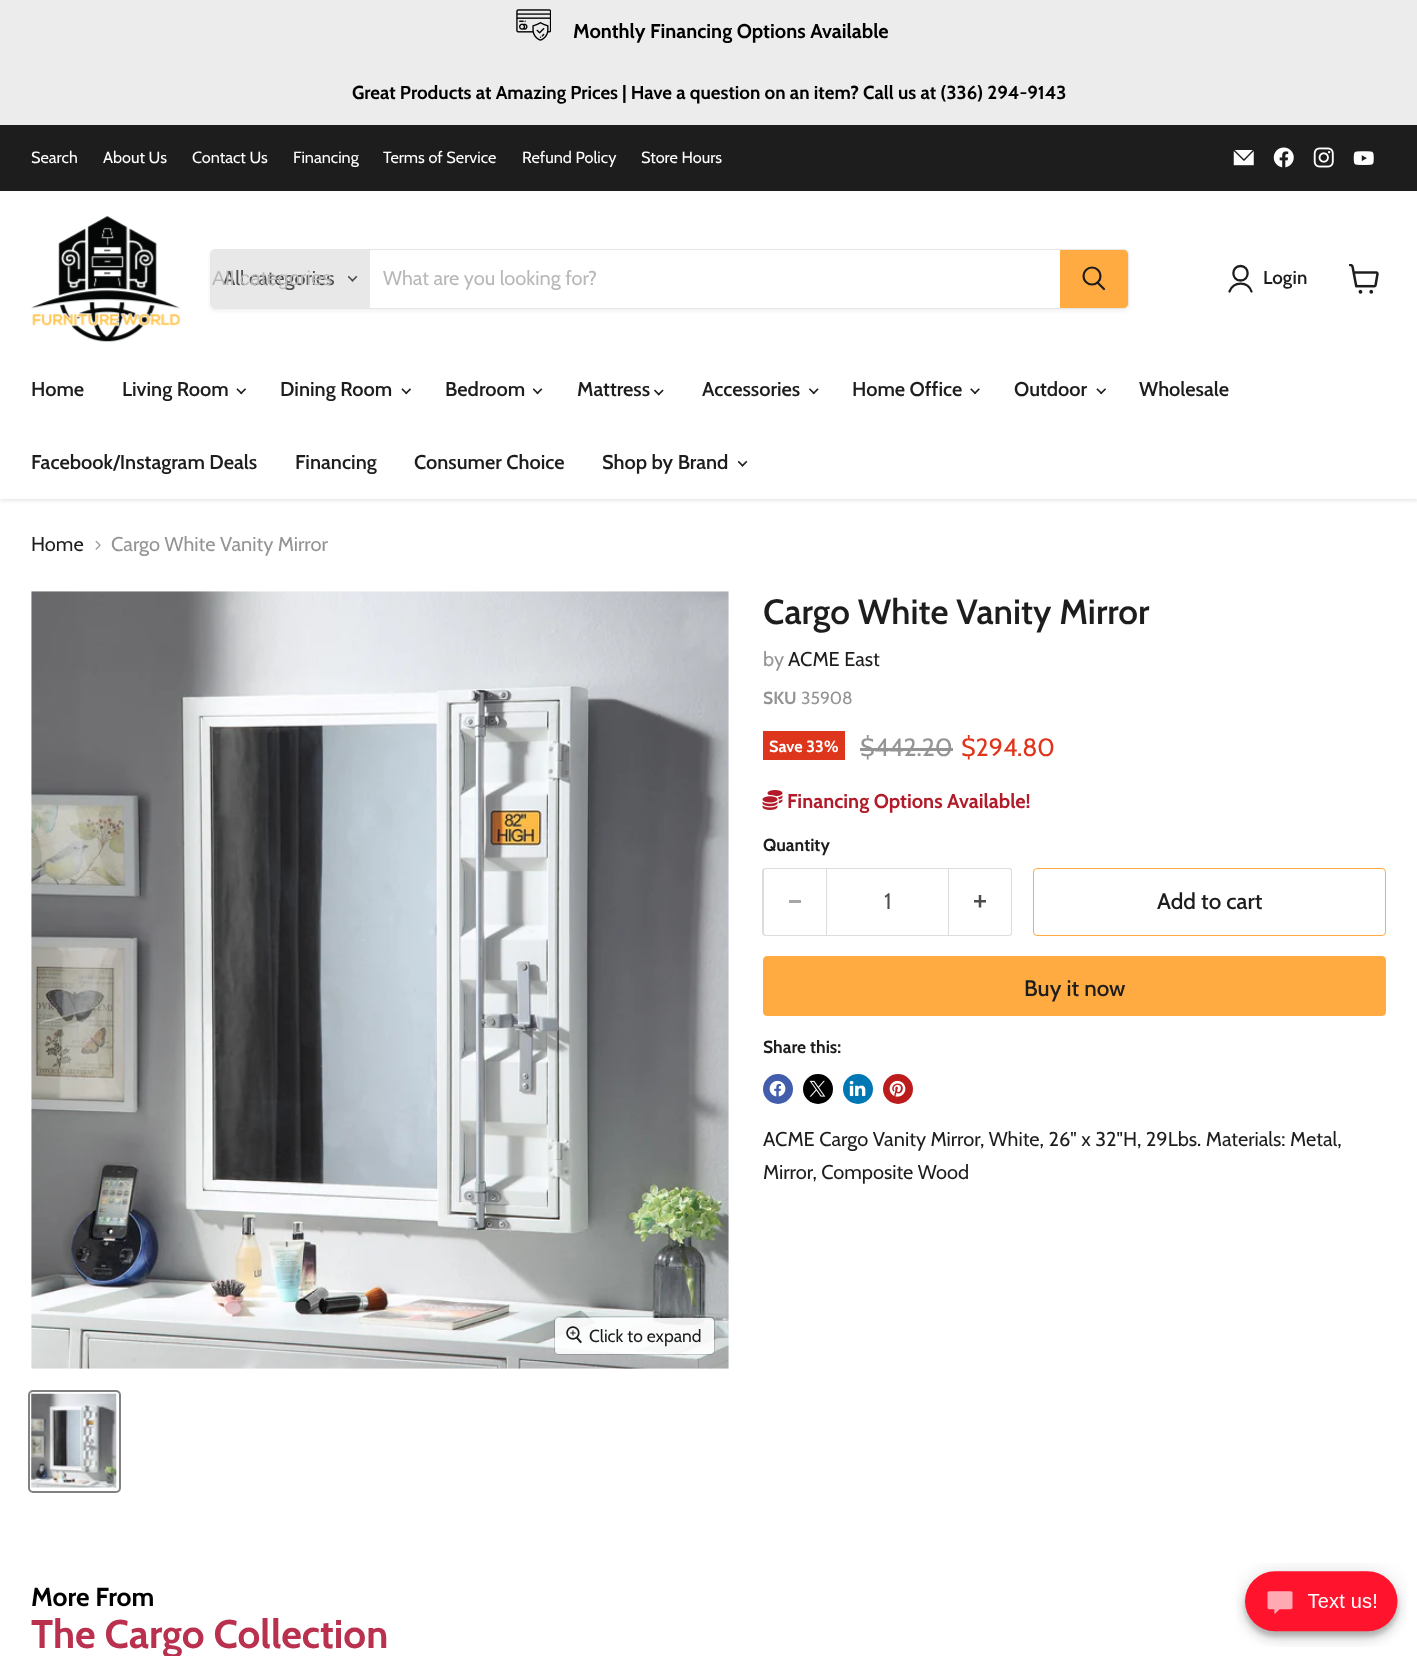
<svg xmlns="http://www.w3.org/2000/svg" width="1417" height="1656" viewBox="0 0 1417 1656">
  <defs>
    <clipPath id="clip1"><path d="M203 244H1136V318H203ZM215 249H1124C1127 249 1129 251 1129 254V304C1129 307 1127 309 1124 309H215C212 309 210 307 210 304V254C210 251 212 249 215 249Z" clip-rule="evenodd"/></clipPath>
  </defs>
  <rect width="100%" height="100%" fill="rgb(255,255,255)"/>
  <rect x="0" y="0" width="1417" height="125" fill="rgb(236,236,236)"/>
  <image x="516" y="9" width="35" height="32" href="pic1.png"/>
  <text x="573" y="38" font-family="Cabin" font-size="20" font-weight="bold" fill="rgb(0,0,0)">Monthly Financing Options Available</text>
  <text x="352" y="99" font-family="Cabin" font-size="18.75" font-weight="bold" fill="rgb(0,0,0)">Great Products at Amazing Prices | Have a question on an item? Call us at (336) 294-9143</text>
  <rect x="0" y="193" width="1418" height="307" fill="rgba(128,128,128,0.25)" filter="blur(2.5px)"/>
  <rect x="0" y="125" width="1417" height="66" fill="rgb(29,29,29)"/>
  <g font-family="Cabin" font-size="16.25" fill="rgb(255,255,255)">
    <text x="31" y="163">Search</text>
    <text x="103" y="163">About Us</text>
    <text x="192" y="163">Contact Us</text>
    <text x="293" y="163">Financing</text>
    <text x="383" y="163">Terms of Service</text>
    <text x="522" y="163">Refund Policy</text>
    <text x="641" y="163">Store Hours</text>
  </g>
  <image x="1233" y="150" width="21" height="16" href="pic2.png"/>
  <image x="1273" y="147" width="21" height="21" href="pic3.png"/>
  <image x="1313" y="147" width="21" height="21" href="pic4.png"/>
  <image x="1353" y="151" width="21" height="14" href="pic5.png"/>
  <rect x="0" y="191" width="1417" height="308" fill="rgb(255,255,255)"/>
  <image x="31" y="216" width="149" height="126" href="pic6.png"/>
  <g clip-path="url(#clip1)">
    <rect x="210" y="251" width="919" height="60" rx="5" fill="rgba(128,128,128,0.11)" filter="blur(2px)"/>
  </g>
  <rect x="210.5" y="249.5" width="918" height="59" rx="4.5" fill="none" stroke="rgba(128,128,128,0.2)"/>
  <path d="M215 250H370V308H215C213 308 211 306 211 304V254C211 252 213 250 215 250Z" fill="rgb(232,232,232)"/>
  <text x="223" y="285" font-family="Cabin" font-size="20" fill="rgb(77,77,77)">All categories</text>
  <text x="212" y="285" font-family="Liberation Sans" font-size="20" fill="rgb(184,184,184)">All categories</text>
  <image x="348" y="275" width="10" height="7" href="pic7.png"/>
  <text x="383" y="285" font-family="Cabin" font-size="20" fill="rgb(184,184,184)">What are you looking for?</text>
  <path d="M1060.5 250.5H1124C1126 250.5 1127.5 252 1127.5 254V304C1127.5 306 1126 307.5 1124 307.5H1060.5Z" fill="rgb(255,171,65)" stroke="rgb(255,171,65)"/>
  <path d="M1104 289L1098 283" fill="none" stroke="rgb(29,29,29)" stroke-width="2.2" stroke-linecap="round"/>
  <circle cx="1092" cy="276" r="8.5" fill="none" stroke="rgb(29,29,29)" stroke-width="2.2"/>
  <path d="M1240.5 280.5C1250 280.5 1250 266 1240.5 266C1231 266 1231 280.5 1240.5 280.5ZM1251.5 291.5C1248 281 1233.5 281 1229.5 291.5" fill="none" stroke="rgb(29,29,29)" stroke-width="2.3" stroke-linecap="round" stroke-linejoin="round"/>
  <text x="1263" y="284" font-family="Cabin" font-size="18.75" font-weight="600" fill="rgb(29,29,29)">Login</text>
  <image x="1349" y="264" width="30" height="30" href="pic8.png"/>
  <g font-family="Cabin" font-size="20" font-weight="600" fill="rgb(29,29,29)">
    <text x="31" y="396">Home</text>
    <text x="122" y="396">Living Room</text>
  </g>
  <image x="236" y="388" width="10" height="7" href="pic9.png"/>
  <text x="280" y="396" font-family="Cabin" font-size="20" font-weight="600" fill="rgb(29,29,29)">Dining Room</text>
  <image x="401" y="388" width="10" height="7" href="pic9.png"/>
  <text x="445" y="396" font-family="Cabin" font-size="20" font-weight="600" fill="rgb(29,29,29)">Bedroom</text>
  <image x="533" y="388" width="10" height="7" href="pic10.png"/>
  <text x="577" y="396" font-family="Cabin" font-size="20" font-weight="600" fill="rgb(29,29,29)">Mattress</text>
  <image x="654" y="389" width="10" height="7" href="pic11.png"/>
  <text x="702" y="396" font-family="Cabin" font-size="20" font-weight="600" fill="rgb(29,29,29)">Accessories</text>
  <image x="809" y="388" width="10" height="7" href="pic12.png"/>
  <text x="852" y="396" font-family="Cabin" font-size="20" font-weight="600" fill="rgb(29,29,29)">Home Office</text>
  <image x="970" y="388" width="10" height="7" href="pic13.png"/>
  <text x="1014" y="396" font-family="Cabin" font-size="20" font-weight="600" fill="rgb(29,29,29)">Outdoor</text>
  <image x="1096" y="388" width="10" height="7" href="pic9.png"/>
  <g font-family="Cabin" font-size="20" font-weight="600" fill="rgb(29,29,29)">
    <text x="1139" y="396">Wholesale</text>
    <text x="31" y="469">Facebook/Instagram Deals</text>
    <text x="295" y="469">Financing</text>
    <text x="414" y="469">Consumer Choice</text>
    <text x="602" y="469">Shop by Brand</text>
  </g>
  <image x="738" y="460" width="10" height="7" href="pic14.png"/>
  <text x="31" y="551" font-family="Cabin" font-size="20" fill="rgb(29,29,29)">Home</text>
  <image x="95" y="540" width="6" height="10" href="pic15.png"/>
  <text x="111" y="551" font-family="Cabin" font-size="20" fill="rgb(148,148,148)">Cargo White Vanity Mirror</text>
  <text x="763" y="624" font-family="Cabin" font-size="35" font-weight="600" fill="rgb(29,29,29)">Cargo White Vanity Mirror</text>
  <text x="763" y="666" font-family="Cabin" font-size="20" fill="rgb(148,148,148)">by</text>
  <text x="788" y="666" font-family="Cabin" font-size="20" fill="rgb(29,29,29)">ACME East</text>
  <text x="763" y="704" font-family="Cabin" font-size="17.5" font-weight="bold" fill="rgb(148,148,148)">SKU</text>
  <text x="801" y="704" font-family="Cabin" font-size="17.5" fill="rgb(148,148,148)">35908</text>
  <rect x="763" y="731" width="82" height="29" fill="rgb(222,54,28)"/>
  <text x="769" y="752" font-family="Cabin" font-size="16.25" font-weight="bold" fill="rgb(255,255,255)">Save 33%</text>
  <text x="860" y="756" font-family="Cabin" font-size="25" fill="rgb(148,148,148)">$442.20</text>
  <rect x="860" y="748" width="93" height="3" fill="rgb(148,148,148)"/>
  <text x="961" y="756" font-family="Cabin" font-size="25" fill="rgb(222,54,28)">$294.80</text>
  <image x="762" y="790" width="21" height="20" href="pic16.png"/>
  <text x="787" y="808" font-family="Cabin" font-size="20" font-weight="bold" fill="rgb(177,27,42)">Financing Options Available!</text>
  <text x="763" y="851" font-family="Cabin" font-size="17.5" font-weight="bold" fill="rgb(29,29,29)">Quantity</text>
  <path d="M766 868H826V936H766C764 936 762 935 762 932V871C762 869 764 868 766 868ZM766 869H826V935H766C765 935 764 934 764 932V871C764 870 765 869 766 869Z" fill="rgb(221,221,221)" fill-rule="evenodd"/>
  <rect x="789" y="900" width="12" height="3" fill="rgb(166,166,166)"/>
  <rect x="826.5" y="868.5" width="122" height="67" fill="none" stroke="rgb(221,221,221)"/>
  <text x="884" y="909" font-family="Cabin" font-size="22.5" fill="rgb(77,77,77)">1</text>
  <path d="M949 868H1009C1011 868 1012 869 1012 871V932C1012 935 1011 936 1009 936H949ZM949 869H1009C1010 869 1011 870 1011 871V932C1011 934 1010 935 1009 935H949Z" fill="rgb(221,221,221)" fill-rule="evenodd"/>
  <image x="974" y="895" width="12" height="13" href="pic17.png"/>
  <rect x="1033.5" y="868.5" width="352" height="67" rx="3.5" fill="none" stroke="rgb(255,171,65)"/>
  <text x="1157" y="909" font-family="Cabin" font-size="22.5" font-weight="500" fill="rgb(29,29,29)">Add to cart</text>
  <rect x="763.5" y="956.5" width="622" height="59" rx="3.5" fill="rgb(255,171,65)" stroke="rgb(255,171,65)"/>
  <text x="1024" y="996" font-family="Cabin" font-size="22.5" font-weight="500" fill="rgb(29,29,29)">Buy it now</text>
  <text x="763" y="1053" font-family="Cabin" font-size="17.5" font-weight="bold" fill="rgb(29,29,29)">Share this:</text>
  <circle cx="778" cy="1089" r="15" fill="rgb(66,93,171)"/>
  <image x="769" y="1080" width="17" height="17" href="pic18.png"/>
  <circle cx="818" cy="1089" r="15" fill="rgb(0,0,0)"/>
  <image x="809" y="1080" width="17" height="17" href="pic19.png"/>
  <circle cx="858" cy="1089" r="15" fill="rgb(0,119,181)"/>
  <image x="849" y="1080" width="17" height="16" href="pic20.png"/>
  <circle cx="898" cy="1089" r="15" fill="rgb(189,28,28)"/>
  <image x="889" y="1080" width="17" height="17" href="pic21.png"/>
  <g font-family="Cabin" font-size="20" fill="rgb(29,29,29)">
    <text>
      <tspan x="763" y="1146">ACME Cargo Vanity Mirror, White, 26" x 32"H, 29Lbs. Materials: Metal,</tspan>
      <tspan x="763" y="1179">Mirror, Composite Wood</tspan>
    </text>
  </g>
  <image x="31" y="591" width="698" height="778" href="pic22.png"/>
  <rect x="554.5" y="1316.5" width="160" height="38" rx="4.5" fill="none" stroke="rgba(0,0,0,0.15)"/>
  <rect x="555" y="1318" width="159" height="36" rx="4" fill="rgba(255,255,255,0.9)"/>
  <image x="566" y="1326" width="16" height="18" href="pic23.png"/>
  <text x="589" y="1342" font-family="Cabin" font-size="17.5" fill="rgb(29,29,29)">Click to expand</text>
  <rect x="29" y="1391" width="91" height="101" rx="4" fill="none" stroke="rgb(129,129,129)" stroke-width="2"/>
  <image x="31" y="1393" width="86" height="95" href="pic24.png"/>
  <text x="31" y="1606" font-family="Cabin" font-size="26.25" font-weight="bold" fill="rgb(0,0,0)">More From</text>
  <text x="31" y="1648" font-family="Cabin" font-size="40" font-weight="bold" fill="rgb(185,49,79)">The Cargo Collection</text>
  <image x="1236" y="1563" width="171" height="84" href="pic25.png"/>
</svg>
